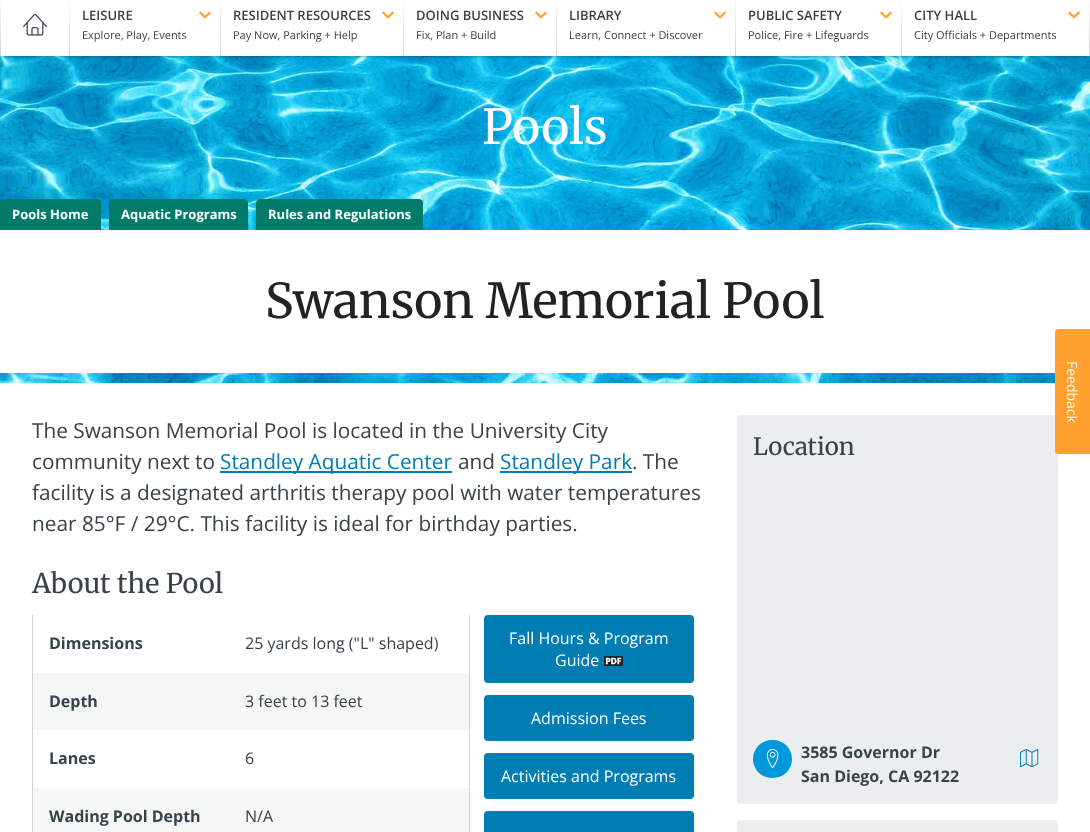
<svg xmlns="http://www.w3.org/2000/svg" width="1090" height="832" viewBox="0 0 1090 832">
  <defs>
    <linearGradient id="g1" gradientUnits="userSpaceOnUse" x1="545" y1="-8" x2="545" y2="56"><stop offset="0" stop-color="rgb(255,255,255)"/><stop offset="1" stop-color="rgb(212,212,212)"/></linearGradient>
    <linearGradient id="g2" gradientUnits="userSpaceOnUse" x1="0.5" y1="-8" x2="0.5" y2="56"><stop offset="0" stop-color="rgb(255,255,255)"/><stop offset="1" stop-color="rgb(212,212,212)"/></linearGradient>
    <linearGradient id="g3" gradientUnits="userSpaceOnUse" x1="70" y1="-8" x2="70" y2="56"><stop offset="0" stop-color="rgb(255,255,255)"/><stop offset="1" stop-color="rgb(212,212,212)"/></linearGradient>
    <linearGradient id="g4" gradientUnits="userSpaceOnUse" x1="221" y1="-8" x2="221" y2="56"><stop offset="0" stop-color="rgb(255,255,255)"/><stop offset="1" stop-color="rgb(212,212,212)"/></linearGradient>
    <linearGradient id="g5" gradientUnits="userSpaceOnUse" x1="404" y1="-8" x2="404" y2="56"><stop offset="0" stop-color="rgb(255,255,255)"/><stop offset="1" stop-color="rgb(212,212,212)"/></linearGradient>
    <linearGradient id="g6" gradientUnits="userSpaceOnUse" x1="557" y1="-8" x2="557" y2="56"><stop offset="0" stop-color="rgb(255,255,255)"/><stop offset="1" stop-color="rgb(212,212,212)"/></linearGradient>
    <linearGradient id="g7" gradientUnits="userSpaceOnUse" x1="736" y1="-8" x2="736" y2="56"><stop offset="0" stop-color="rgb(255,255,255)"/><stop offset="1" stop-color="rgb(212,212,212)"/></linearGradient>
    <linearGradient id="g8" gradientUnits="userSpaceOnUse" x1="902" y1="-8" x2="902" y2="56"><stop offset="0" stop-color="rgb(255,255,255)"/><stop offset="1" stop-color="rgb(212,212,212)"/></linearGradient>
  </defs>
  <rect width="100%" height="100%" fill="rgb(255,255,255)"/>
  <image x="0" y="56" width="1090" height="327" href="pic3.png"/>
  <rect x="3" y="-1" width="1084" height="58" fill="rgba(0,0,0,0.3)" filter="blur(1.5px)"/>
  <rect x="1089" y="0" width="1" height="56" fill="url(#g1)"/>
  <rect x="1" y="0" width="68" height="56" fill="rgb(255,255,255)"/>
  <rect x="0" y="0" width="1" height="56" fill="url(#g2)"/>
  <image x="23" y="13" width="24" height="23" href="pic1.png"/>
  <rect x="70" y="0" width="150" height="56" fill="rgb(255,255,255)"/>
  <rect x="69" y="0" width="1" height="56" fill="url(#g3)"/>
  <text x="82" y="20" font-family="Open Sans" font-size="13" font-weight="600" fill="rgb(55,66,74)">LEISURE</text>
  <image x="199" y="11" width="12" height="8" href="pic2.png"/>
  <text x="82" y="39" font-family="Open Sans" font-size="11" fill="rgb(55,66,74)">Explore, Play, Events</text>
  <rect x="221" y="0" width="182" height="56" fill="rgb(255,255,255)"/>
  <rect x="220" y="0" width="1" height="56" fill="url(#g4)"/>
  <text x="233" y="20" font-family="Open Sans" font-size="13" font-weight="600" fill="rgb(55,66,74)">RESIDENT RESOURCES</text>
  <image x="382" y="11" width="12" height="8" href="pic2.png"/>
  <text x="233" y="39" font-family="Open Sans" font-size="11" fill="rgb(55,66,74)">Pay Now, Parking + Help</text>
  <rect x="404" y="0" width="152" height="56" fill="rgb(255,255,255)"/>
  <rect x="403" y="0" width="1" height="56" fill="url(#g5)"/>
  <text x="416" y="20" font-family="Open Sans" font-size="13" font-weight="600" fill="rgb(55,66,74)">DOING BUSINESS</text>
  <image x="535" y="11" width="12" height="8" href="pic2.png"/>
  <text x="416" y="39" font-family="Open Sans" font-size="11" fill="rgb(55,66,74)">Fix, Plan + Build</text>
  <rect x="557" y="0" width="178" height="56" fill="rgb(255,255,255)"/>
  <rect x="556" y="0" width="1" height="56" fill="url(#g6)"/>
  <text x="569" y="20" font-family="Open Sans" font-size="13" font-weight="600" fill="rgb(55,66,74)">LIBRARY</text>
  <image x="714" y="11" width="12" height="8" href="pic2.png"/>
  <text x="569" y="39" font-family="Open Sans" font-size="11" fill="rgb(55,66,74)">Learn, Connect + Discover</text>
  <rect x="736" y="0" width="165" height="56" fill="rgb(255,255,255)"/>
  <rect x="735" y="0" width="1" height="56" fill="url(#g7)"/>
  <text x="748" y="20" font-family="Open Sans" font-size="13" font-weight="600" fill="rgb(55,66,74)">PUBLIC SAFETY</text>
  <image x="880" y="11" width="12" height="8" href="pic2.png"/>
  <text x="748" y="39" font-family="Open Sans" font-size="11" fill="rgb(55,66,74)">Police, Fire + Lifeguards</text>
  <rect x="902" y="0" width="187" height="56" fill="rgb(255,255,255)"/>
  <rect x="901" y="0" width="1" height="56" fill="url(#g8)"/>
  <text x="914" y="20" font-family="Open Sans" font-size="13" font-weight="600" fill="rgb(55,66,74)">CITY HALL</text>
  <image x="1068" y="11" width="12" height="8" href="pic2.png"/>
  <text x="914" y="39" font-family="Open Sans" font-size="11" fill="rgb(55,66,74)">City Officials + Departments</text>
  <text x="482" y="144" font-family="Merriweather" font-size="48" fill="rgb(255,255,255)">Pools</text>
  <path d="M4 199H97C99 199 101 201 101 203V230H0V203C0 201 2 199 4 199Z" fill="rgb(0,123,105)"/>
  <text x="12" y="219" font-family="Open Sans" font-size="13" font-weight="bold" fill="rgb(255,255,255)">Pools Home</text>
  <path d="M113 199H244C246 199 248 201 248 203V230H109V203C109 201 111 199 113 199Z" fill="rgb(0,123,105)"/>
  <text x="121" y="219" font-family="Open Sans" font-size="13" font-weight="bold" fill="rgb(255,255,255)">Aquatic Programs</text>
  <path d="M260 199H419C421 199 423 201 423 203V230H256V203C256 201 258 199 260 199Z" fill="rgb(0,123,105)"/>
  <text x="268" y="219" font-family="Open Sans" font-size="13" font-weight="bold" fill="rgb(255,255,255)">Rules and Regulations</text>
  <rect x="0" y="230" width="1090" height="143" fill="rgb(255,255,255)"/>
  <text x="265" y="318" font-family="Merriweather" font-size="48" fill="rgb(34,34,34)">Swanson Memorial Pool</text>
  <g font-family="Open Sans" font-size="20.8" fill="rgb(55,66,74)">
    <text>
      <tspan x="32" y="438">The Swanson Memorial Pool is located in the University City</tspan>
      <tspan x="32" y="469">community next to</tspan>
    </text>
  </g>
  <rect x="220" y="471" width="232" height="2" fill="rgb(0,125,179)"/>
  <text x="220" y="469" font-family="Open Sans" font-size="20.8" fill="rgb(0,125,179)">Standley Aquatic Center</text>
  <text x="458" y="469" font-family="Open Sans" font-size="20.8" fill="rgb(55,66,74)">and</text>
  <rect x="500" y="471" width="132" height="2" fill="rgb(0,125,179)"/>
  <text x="500" y="469" font-family="Open Sans" font-size="20.8" fill="rgb(0,125,179)">Standley Park</text>
  <g font-family="Open Sans" font-size="20.8" fill="rgb(55,66,74)">
    <text x="632" y="469">. The</text>
    <text>
      <tspan x="32" y="500">facility is a designated arthritis therapy pool with water temperatures</tspan>
      <tspan x="32" y="531">near 85°F / 29°C. This facility is ideal for birthday parties.</tspan>
    </text>
  </g>
  <text x="32" y="593" font-family="Merriweather" font-size="27" fill="rgb(55,66,74)">About the Pool</text>
  <rect x="32" y="615" width="1" height="217" fill="rgb(209,212,211)"/>
  <text x="49" y="649" font-family="Open Sans" font-size="16" font-weight="bold" fill="rgb(55,66,74)">Dimensions</text>
  <rect x="469" y="615" width="1" height="217" fill="rgb(209,212,211)"/>
  <text x="245" y="649" font-family="Open Sans" font-size="16" fill="rgb(55,66,74)">25 yards long ("L" shaped)</text>
  <rect x="33" y="673" width="436" height="57" fill="rgb(245,246,246)"/>
  <text x="49" y="707" font-family="Open Sans" font-size="16" font-weight="bold" fill="rgb(55,66,74)">Depth</text>
  <text x="245" y="707" font-family="Open Sans" font-size="16" fill="rgb(55,66,74)">3 feet to 13 feet</text>
  <text x="49" y="764" font-family="Open Sans" font-size="16" font-weight="bold" fill="rgb(55,66,74)">Lanes</text>
  <text x="245" y="764" font-family="Open Sans" font-size="16" fill="rgb(55,66,74)">6</text>
  <rect x="33" y="788" width="436" height="44" fill="rgb(245,246,246)"/>
  <text x="49" y="822" font-family="Open Sans" font-size="16" font-weight="bold" fill="rgb(55,66,74)">Wading Pool Depth</text>
  <text x="245" y="822" font-family="Open Sans" font-size="16" fill="rgb(55,66,74)">N/A</text>
  <rect x="484" y="615" width="210" height="68" rx="4" fill="rgb(0,125,179)"/>
  <g font-family="Open Sans" font-size="16" fill="rgb(255,255,255)">
    <text x="509" y="644">Fall Hours &amp; Program</text>
    <text x="555" y="666">Guide</text>
  </g>
  <image x="604" y="656" width="19" height="10" href="pic4.png"/>
  <rect x="484" y="695" width="210" height="46" rx="4" fill="rgb(0,125,179)"/>
  <text x="531" y="724" font-family="Open Sans" font-size="16" fill="rgb(255,255,255)">Admission Fees</text>
  <rect x="484" y="753" width="210" height="46" rx="4" fill="rgb(0,125,179)"/>
  <text x="501" y="782" font-family="Open Sans" font-size="16" fill="rgb(255,255,255)">Activities and Programs</text>
  <rect x="484" y="811" width="210" height="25" rx="4" fill="rgb(0,125,179)"/>
  <rect x="737" y="415" width="321" height="389" rx="4" fill="rgb(234,238,239)"/>
  <text x="753" y="455" font-family="Merriweather" font-size="24" fill="rgb(55,66,74)">Location</text>
  <rect x="753" y="740" width="39" height="38" rx="19" fill="rgb(0,152,219)"/>
  <image x="766" y="749" width="13" height="20" href="pic5.png"/>
  <g font-family="Open Sans" font-size="16" font-weight="bold" fill="rgb(55,66,74)">
    <text>
      <tspan x="801" y="758">3585 Governor Dr</tspan>
      <tspan x="801" y="782">San Diego, CA 92122</tspan>
    </text>
  </g>
  <image x="1020" y="749" width="19" height="19" href="pic6.png"/>
  <rect x="737" y="820" width="321" height="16" rx="4" fill="rgb(234,238,239)"/>
  <path d="M1090 329V454H1058C1056 454 1055 453 1055 451V332C1055 331 1056 329 1058 329Z" fill="rgb(255,160,47)"/>
  <text x="1067" y="361" transform="rotate(90 1067 361)" font-family="Open Sans" font-size="14" fill="rgb(255,255,255)">Feedback</text>
</svg>
